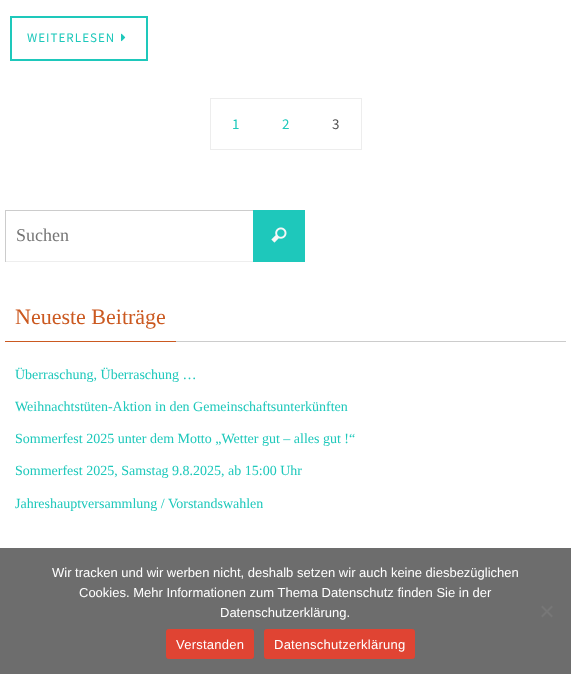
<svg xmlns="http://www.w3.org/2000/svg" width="571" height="674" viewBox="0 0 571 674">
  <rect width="100%" height="100%" fill="rgb(255,255,255)"/>
  <rect x="11" y="17" width="136" height="43" fill="none" stroke="rgb(30,200,187)" stroke-width="2"/>
  <text x="27" y="42" font-family="Source Sans Pro" font-size="13" letter-spacing="1" fill="rgb(30,200,187)">WEITERLESEN</text>
  <image x="121" y="33" width="5" height="9" href="pic1.png"/>
  <rect x="210.5" y="98.5" width="151" height="51" fill="none" stroke="rgb(237,237,237)"/>
  <g font-family="Source Sans Pro" font-size="15" fill="rgb(30,200,187)">
    <text x="232" y="129">1</text>
    <text x="282" y="129">2</text>
  </g>
  <text x="332" y="129" font-family="Source Sans Pro" font-size="15" fill="rgb(85,85,85)">3</text>
  <rect x="253" y="210" width="52" height="52" fill="rgb(30,200,187)"/>
  <rect x="5" y="210" width="248" height="1" fill="rgb(204,204,204)"/>
  <rect x="5" y="261" width="248" height="1" fill="rgb(238,238,238)"/>
  <rect x="5" y="210" width="1" height="52" fill="rgb(204,204,204)"/>
  <text x="16" y="241" font-family="Liberation Serif" font-size="18" fill="rgb(117,117,117)">Suchen</text>
  <image x="271" y="227" width="16" height="16" href="pic2.png"/>
  <rect x="176" y="341" width="390" height="1" fill="rgb(204,204,204)"/>
  <rect x="5" y="341" width="171" height="1" fill="rgb(203,89,32)"/>
  <text x="15" y="324" font-family="Liberation Serif" font-size="22" fill="rgb(203,89,32)">Neueste Beiträge</text>
  <g font-family="Liberation Serif" font-size="14" fill="rgb(30,200,187)">
    <text x="15" y="379">Überraschung, Überraschung …</text>
    <text x="15" y="411">Weihnachtstüten-Aktion in den Gemeinschaftsunterkünften</text>
    <text x="15" y="443">Sommerfest 2025 unter dem Motto „Wetter gut – alles gut !“</text>
    <text x="15" y="475">Sommerfest 2025, Samstag 9.8.2025, ab 15:00 Uhr</text>
    <text x="15" y="508">Jahreshauptversammlung / Vorstandswahlen</text>
  </g>
  <rect x="0" y="548" width="571" height="126" fill="rgb(109,109,109)"/>
  <g font-family="Liberation Sans" font-size="13" fill="rgb(255,255,255)">
    <text x="52" y="577">Wir tracken und wir werben nicht, deshalb setzen wir auch keine diesbezüglichen</text>
    <text x="79" y="597">Cookies. Mehr Informationen zum Thema Datenschutz finden Sie in der</text>
    <text x="220" y="617">Datenschutzerklärung.</text>
  </g>
  <path d="M551.5 605.5L553 607L542.5 617.5L541 616Z" fill="rgb(119,119,119)"/>
  <path d="M541 607L542.5 605.5L553 616L551.5 617.5Z" fill="rgb(119,119,119)"/>
  <rect x="166" y="629" width="88" height="30" rx="3" fill="rgb(224,68,51)"/>
  <text x="176" y="649" font-family="Liberation Sans" font-size="13" letter-spacing="0.25" fill="rgb(255,255,255)">Verstanden</text>
  <rect x="264" y="629" width="151" height="30" rx="3" fill="rgb(224,68,51)"/>
  <text x="274" y="649" font-family="Liberation Sans" font-size="13" letter-spacing="0.25" fill="rgb(255,255,255)">Datenschutzerklärung</text>
</svg>
